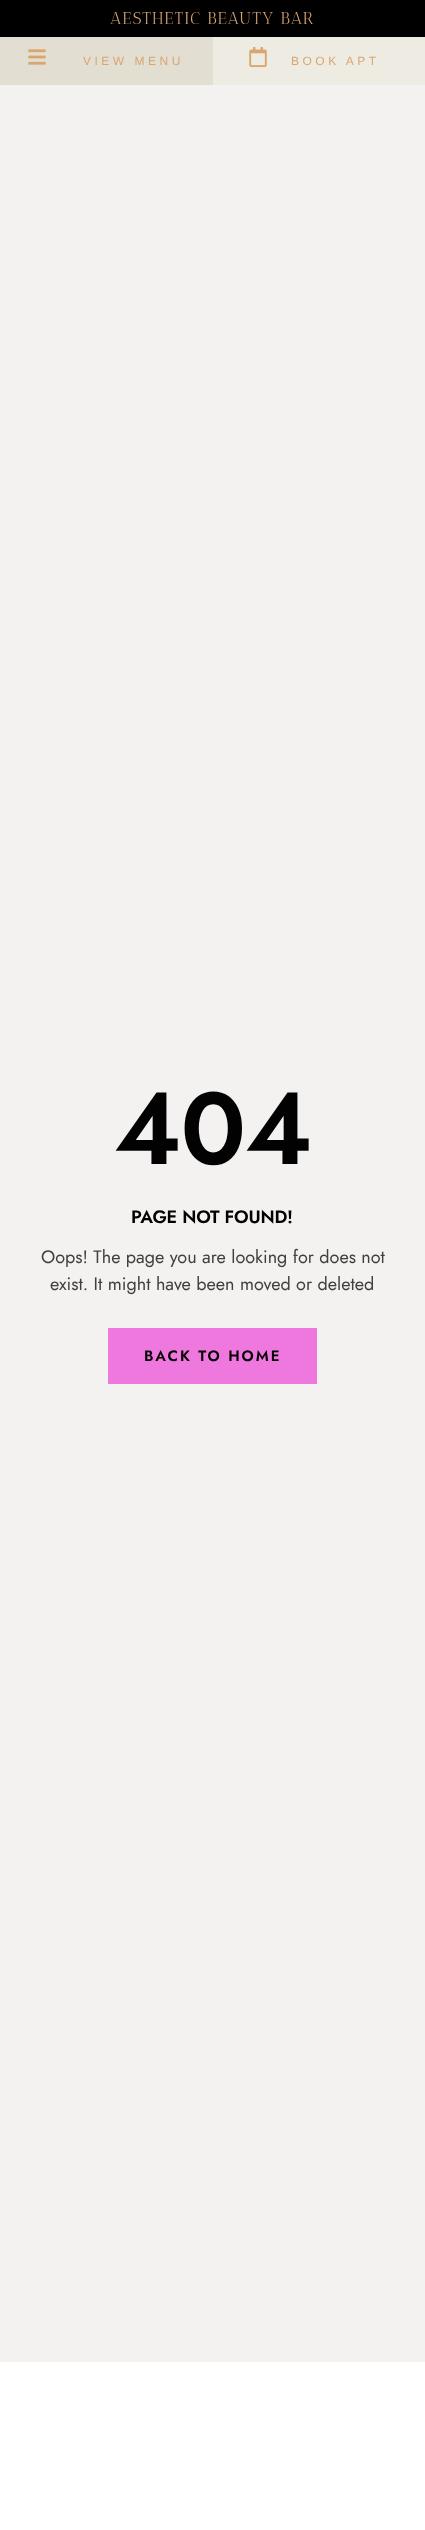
<svg xmlns="http://www.w3.org/2000/svg" width="425" height="2530" viewBox="0 0 425 2530">
  <rect width="100%" height="100%" fill="rgb(255,255,255)"/>
  <rect x="0" y="0" width="425" height="37" fill="rgb(0,0,0)"/>
  <text x="110" y="24" font-family="Antic Didone" font-size="17" letter-spacing="1.1" fill="rgb(218,166,112)">AESTHETIC BEAUTY BAR</text>
  <rect x="0" y="37" width="213" height="48" fill="rgb(226,222,210)"/>
  <image x="28" y="49" width="18" height="16" href="pic1.png"/>
  <text x="83" y="65" font-family="Liberation Sans" font-size="12" letter-spacing="3.5" fill="rgb(218,166,112)">VIEW MENU</text>
  <rect x="213" y="37" width="212" height="48" fill="rgb(238,235,226)"/>
  <image x="249" y="47" width="18" height="20" href="pic2.png"/>
  <text x="291" y="65" font-family="Liberation Sans" font-size="12" letter-spacing="3.5" fill="rgb(218,166,112)">BOOK APT</text>
  <rect x="0" y="85" width="425" height="2277" fill="rgb(244,242,241)"/>
  <text x="114" y="1164" font-family="Jost" font-size="102" font-weight="600" letter-spacing="-1" fill="rgb(2,2,2)">404</text>
  <text x="131" y="1223" font-family="Jost" font-size="18" font-weight="600" letter-spacing="-0.2" fill="rgb(2,2,2)">PAGE NOT FOUND!</text>
  <g font-family="Jost" font-size="18" fill="rgb(64,64,64)">
    <text x="41" y="1263">Oops! The page you are looking for does not</text>
    <text x="50" y="1290">exist. It might have been moved or deleted</text>
  </g>
  <rect x="108" y="1328" width="209" height="56" fill="rgb(239,120,222)"/>
  <text x="144" y="1361" font-family="Jost" font-size="15" font-weight="600" letter-spacing="2" fill="rgb(2,2,2)">BACK TO HOME</text>
</svg>
